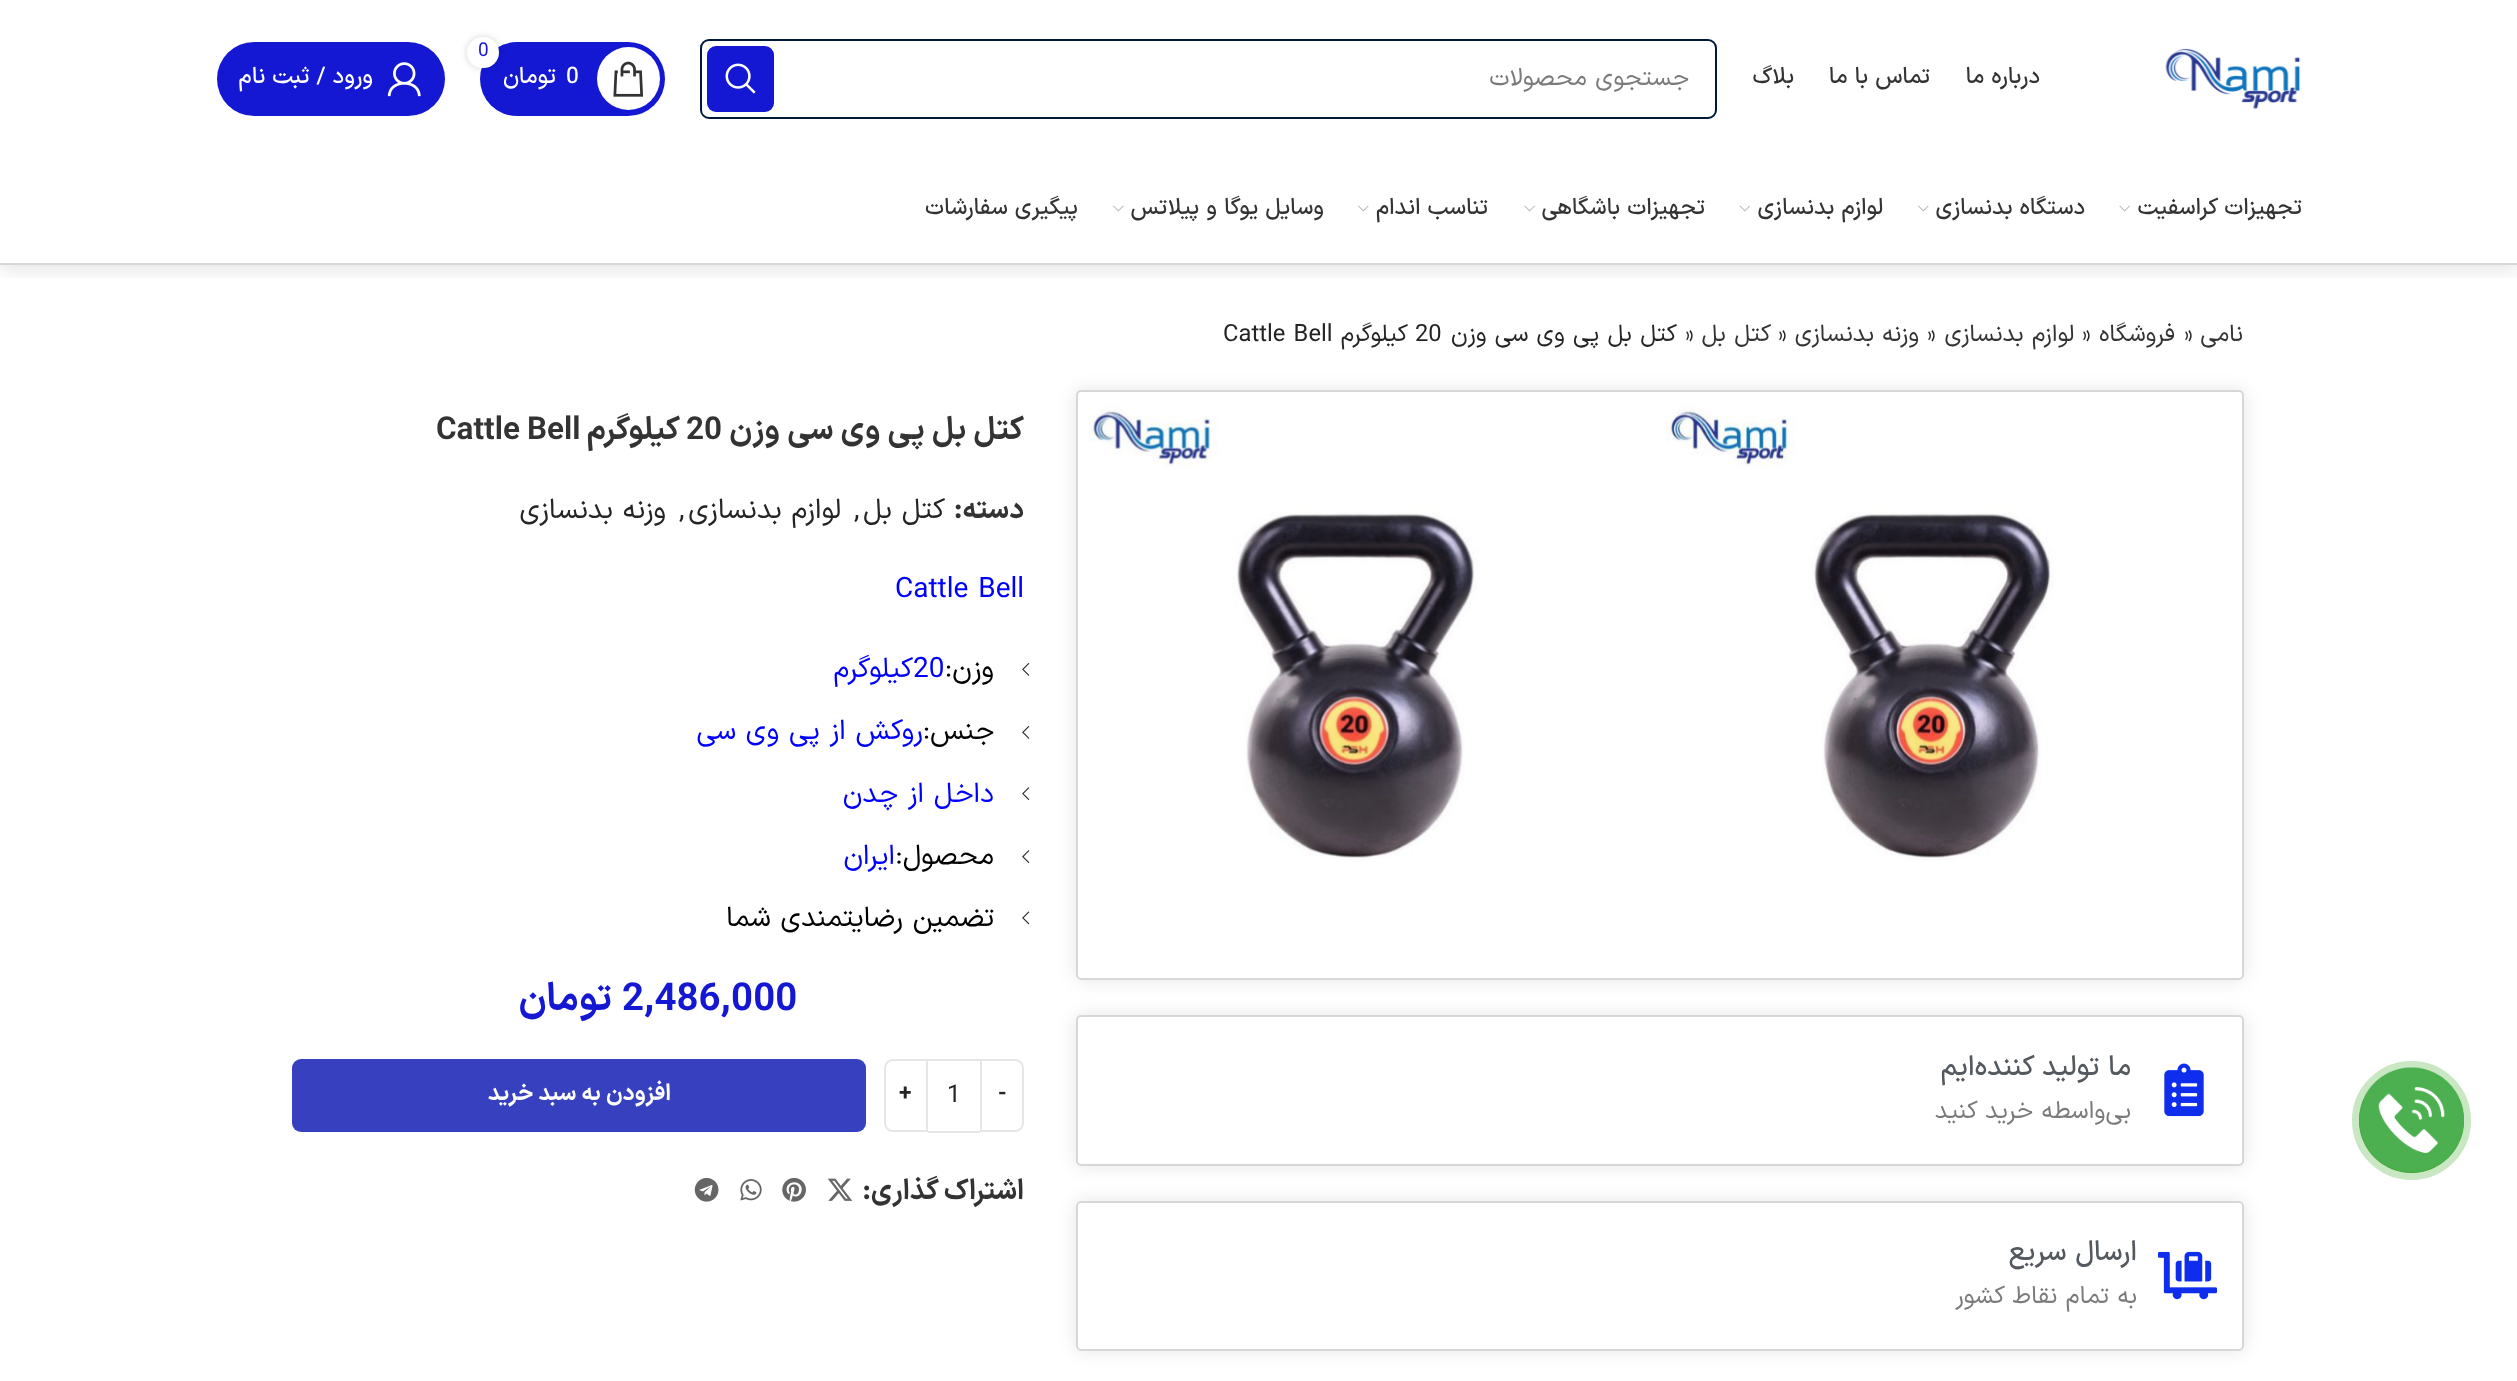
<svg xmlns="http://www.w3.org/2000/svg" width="2517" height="1381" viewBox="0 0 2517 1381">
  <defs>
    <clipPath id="clip1"><rect x="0" y="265" width="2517" height="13"/></clipPath>
    <clipPath id="clip2"><path d="M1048 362H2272V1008H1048ZM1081 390H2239C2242 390 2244 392 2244 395V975C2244 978 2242 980 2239 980H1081C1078 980 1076 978 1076 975V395C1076 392 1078 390 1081 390Z" clip-rule="evenodd"/></clipPath>
    <clipPath id="clip3"><path d="M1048 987H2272V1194H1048ZM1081 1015H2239C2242 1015 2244 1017 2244 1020V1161C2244 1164 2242 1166 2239 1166H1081C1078 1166 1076 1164 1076 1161V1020C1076 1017 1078 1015 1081 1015Z" clip-rule="evenodd"/></clipPath>
    <clipPath id="clip4"><path d="M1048 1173H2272V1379H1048ZM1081 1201H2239C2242 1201 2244 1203 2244 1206V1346C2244 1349 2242 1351 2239 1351H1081C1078 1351 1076 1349 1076 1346V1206C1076 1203 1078 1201 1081 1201Z" clip-rule="evenodd"/></clipPath>
  </defs>
  <rect width="100%" height="100%" fill="rgb(255,255,255)"/>
  <circle cx="2411.5" cy="1120.5" r="56" fill="none" stroke="rgb(201,231,195)" stroke-width="7"/>
  <circle cx="2411.5" cy="1120.5" r="52.5" fill="rgb(39,159,13)"/>
  <image x="2359" y="1067" width="105" height="106" href="pic1.png"/>
  <g clip-path="url(#clip1)">
    <rect x="0" y="5" width="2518" height="265" fill="rgba(0,0,0,0.1)" filter="blur(9px)"/>
  </g>
  <image x="2165" y="48" width="136" height="61" href="pic2.png"/>
  <g font-family="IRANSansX" font-size="22.75" font-weight="500" direction="rtl" fill="rgb(51,51,51)">
    <text x="2040" y="83">درباره ما</text>
    <text x="1930" y="83">تماس با ما</text>
    <text x="1794" y="83">بلاگ</text>
  </g>
  <rect x="701" y="40" width="1015" height="78" rx="8" fill="none" stroke="rgb(0,25,56)" stroke-width="2"/>
  <text x="1689" y="85" font-family="IRANSansX" font-size="24.5" direction="rtl" fill="rgb(122,122,122)">جستجوی محصولات</text>
  <rect x="707" y="46" width="67" height="66" rx="9" fill="rgb(21,24,211)"/>
  <image x="725" y="63" width="31" height="31" href="pic3.png"/>
  <rect x="480" y="42" width="185" height="74" rx="37" fill="rgb(21,24,211)"/>
  <circle cx="628.5" cy="78.5" r="31.5" fill="rgb(255,255,255)"/>
  <rect x="467" y="37" width="32" height="31" rx="15.5" fill="rgba(0,0,0,0.17)" filter="blur(3.5px)"/>
  <rect x="467" y="37" width="32" height="31" rx="15.5" fill="rgb(255,255,255)"/>
  <text x="478" y="56" font-family="IRANSansX" font-size="19" fill="rgb(21,24,211)">0</text>
  <image x="613" y="61" width="31" height="36" href="pic4.png"/>
  <text x="566" y="83" font-family="IRANSansX" font-size="22.75" font-weight="500" fill="rgb(255,255,255)">0</text>
  <text x="556" y="83" font-family="IRANSansX" font-size="22.75" font-weight="500" direction="rtl" fill="rgb(255,255,255)">تومان</text>
  <rect x="217" y="42" width="228" height="74" rx="37" fill="rgb(21,24,211)"/>
  <image x="387" y="62" width="34" height="35" href="pic5.png"/>
  <text x="373" y="83" font-family="IRANSansX" font-size="22.75" font-weight="500" direction="rtl" fill="rgb(255,255,255)">ورود / ثبت نام</text>
  <rect x="0" y="263" width="2517" height="2" fill="rgb(215,215,215)"/>
  <text x="2302" y="214" font-family="IRANSansX" font-size="22.75" font-weight="500" direction="rtl" fill="rgb(51,51,51)">تجهیزات کراسفیت</text>
  <image x="2119" y="205" width="11" height="7" href="pic6.png"/>
  <text x="2085" y="214" font-family="IRANSansX" font-size="22.75" font-weight="500" direction="rtl" fill="rgb(51,51,51)">دستگاه بدنسازی</text>
  <image x="1918" y="205" width="11" height="7" href="pic7.png"/>
  <text x="1883" y="214" font-family="IRANSansX" font-size="22.75" font-weight="500" direction="rtl" fill="rgb(51,51,51)">لوازم بدنسازی</text>
  <image x="1739" y="205" width="11" height="7" href="pic8.png"/>
  <text x="1705" y="214" font-family="IRANSansX" font-size="22.75" font-weight="500" direction="rtl" fill="rgb(51,51,51)">تجهیزات باشگاهی</text>
  <image x="1524" y="205" width="11" height="7" href="pic6.png"/>
  <text x="1488" y="214" font-family="IRANSansX" font-size="22.75" font-weight="500" direction="rtl" fill="rgb(51,51,51)">تناسب اندام</text>
  <image x="1358" y="205" width="11" height="7" href="pic7.png"/>
  <text x="1324" y="214" font-family="IRANSansX" font-size="22.75" font-weight="500" direction="rtl" fill="rgb(51,51,51)">وسایل یوگا و پیلاتس</text>
  <image x="1113" y="205" width="11" height="7" href="pic7.png"/>
  <text x="1078" y="214" font-family="IRANSansX" font-size="22.75" font-weight="500" direction="rtl" fill="rgb(51,51,51)">پیگیری سفارشات</text>
  <text x="2243" y="341" font-family="IRANSansX" font-size="23.75" direction="rtl" fill="rgb(51,51,51)">نامی</text>
  <text x="2184" y="341" font-family="IRANSansX" font-size="23.75" fill="rgb(36,36,36)">»</text>
  <text x="2175" y="341" font-family="IRANSansX" font-size="23.75" direction="rtl" fill="rgb(51,51,51)">فروشگاه</text>
  <text x="2082" y="341" font-family="IRANSansX" font-size="23.75" fill="rgb(36,36,36)">»</text>
  <text x="2074" y="341" font-family="IRANSansX" font-size="23.75" direction="rtl" fill="rgb(51,51,51)">لوازم بدنسازی</text>
  <text x="1927" y="341" font-family="IRANSansX" font-size="23.75" fill="rgb(36,36,36)">»</text>
  <text x="1919" y="341" font-family="IRANSansX" font-size="23.75" direction="rtl" fill="rgb(51,51,51)">وزنه بدنسازی</text>
  <text x="1778" y="341" font-family="IRANSansX" font-size="23.75" fill="rgb(36,36,36)">»</text>
  <text x="1771" y="341" font-family="IRANSansX" font-size="23.75" direction="rtl" fill="rgb(51,51,51)">کتل بل</text>
  <text x="1685" y="341" font-family="IRANSansX" font-size="23.75" fill="rgb(36,36,36)">»</text>
  <text x="1677" y="341" font-family="IRANSansX" font-size="23.75" direction="rtl" fill="rgb(36,36,36)">کتل بل پی وی سی وزن</text>
  <text x="1415" y="341" font-family="IRANSansX" font-size="23.75" fill="rgb(36,36,36)">20</text>
  <text x="1408" y="341" font-family="IRANSansX" font-size="23.75" direction="rtl" fill="rgb(36,36,36)">کیلوگرم</text>
  <text x="1223" y="341" font-family="IRANSansX" font-size="23.75" fill="rgb(36,36,36)">Cattle Bell</text>
  <g clip-path="url(#clip2)">
    <rect x="1076" y="390" width="1168" height="590" rx="5" fill="rgba(0,0,0,0.1)" filter="blur(9px)"/>
  </g>
  <rect x="1077" y="391" width="1166" height="588" rx="4" fill="none" stroke="rgb(215,215,215)" stroke-width="2"/>
  <image x="1666" y="403" width="388" height="458" href="pic9.png"/>
  <image x="1089" y="403" width="389" height="456" href="pic10.png"/>
  <g clip-path="url(#clip3)">
    <rect x="1076" y="1015" width="1168" height="151" rx="5" fill="rgba(0,0,0,0.1)" filter="blur(9px)"/>
  </g>
  <rect x="1077" y="1016" width="1166" height="149" rx="4" fill="none" stroke="rgb(215,215,215)" stroke-width="2"/>
  <image x="2164" y="1063" width="40" height="54" href="pic11.png"/>
  <text x="2131" y="1075" font-family="IRANSansX" font-size="28" font-weight="500" direction="rtl" fill="rgb(84,89,95)">ما تولید کننده‌ایم</text>
  <text x="2131" y="1118" font-family="IRANSansX" font-size="24.5" direction="rtl" fill="rgb(122,122,122)">بی‌واسطه خرید کنید</text>
  <g clip-path="url(#clip4)">
    <rect x="1076" y="1201" width="1168" height="150" rx="5" fill="rgba(0,0,0,0.1)" filter="blur(9px)"/>
  </g>
  <rect x="1077" y="1202" width="1166" height="148" rx="4" fill="none" stroke="rgb(215,215,215)" stroke-width="2"/>
  <image x="2157" y="1251" width="61" height="49" href="pic12.png"/>
  <text x="2137" y="1260" font-family="IRANSansX" font-size="28" font-weight="500" direction="rtl" fill="rgb(84,89,95)">ارسال سریع</text>
  <text x="2137" y="1303" font-family="IRANSansX" font-size="24.5" direction="rtl" fill="rgb(122,122,122)">به تمام نقاط کشور</text>
  <text x="1024" y="439" font-family="IRANSansX" font-size="31.5" font-weight="bold" direction="rtl" fill="rgb(51,51,51)">کتل بل پی وی سی وزن</text>
  <text x="686" y="439" font-family="IRANSansX" font-size="31.5" font-weight="bold" fill="rgb(51,51,51)">20</text>
  <text x="680" y="439" font-family="IRANSansX" font-size="31.5" font-weight="bold" direction="rtl" fill="rgb(51,51,51)">کیلوگرم</text>
  <text x="436" y="439" font-family="IRANSansX" font-size="31.5" font-weight="bold" fill="rgb(51,51,51)">Cattle Bell</text>
  <text x="1024" y="518" font-family="IRANSansX" font-size="28" font-weight="bold" direction="rtl" fill="rgb(51,51,51)">دسته:</text>
  <text x="945" y="518" font-family="IRANSansX" font-size="28" direction="rtl" fill="rgb(36,36,36)">کتل بل</text>
  <text x="854" y="518" font-family="IRANSansX" font-size="28" fill="rgb(36,36,36)">,</text>
  <text x="841" y="518" font-family="IRANSansX" font-size="28" direction="rtl" fill="rgb(36,36,36)">لوازم بدنسازی</text>
  <text x="679" y="518" font-family="IRANSansX" font-size="28" fill="rgb(36,36,36)">,</text>
  <text x="666" y="518" font-family="IRANSansX" font-size="28" direction="rtl" fill="rgb(36,36,36)">وزنه بدنسازی</text>
  <text x="895" y="597" font-family="IRANSansX" font-size="28" fill="rgb(0,0,255)">Cattle Bell</text>
  <image x="1022" y="663" width="8" height="13" href="pic13.png"/>
  <text x="994" y="677" font-family="IRANSansX" font-size="28" direction="rtl" fill="rgb(0,0,0)">وزن:</text>
  <text x="913" y="677" font-family="IRANSansX" font-size="28" fill="rgb(0,0,255)">20</text>
  <text x="913" y="677" font-family="IRANSansX" font-size="28" direction="rtl" fill="rgb(0,0,255)">کیلوگرم</text>
  <image x="1022" y="726" width="8" height="13" href="pic13.png"/>
  <text x="994" y="739" font-family="IRANSansX" font-size="28" direction="rtl" fill="rgb(0,0,0)">جنس:</text>
  <text x="923" y="739" font-family="IRANSansX" font-size="28" direction="rtl" fill="rgb(0,0,255)">روکش از پی وی سی</text>
  <image x="1022" y="787" width="8" height="13" href="pic14.png"/>
  <text x="994" y="802" font-family="IRANSansX" font-size="28" direction="rtl" fill="rgb(0,0,255)">داخل از چدن</text>
  <image x="1022" y="850" width="8" height="13" href="pic14.png"/>
  <text x="994" y="864" font-family="IRANSansX" font-size="28" direction="rtl" fill="rgb(0,0,0)">محصول:</text>
  <text x="895" y="864" font-family="IRANSansX" font-size="28" direction="rtl" fill="rgb(0,0,255)">ایران</text>
  <image x="1022" y="911" width="8" height="14" href="pic15.png"/>
  <text x="994" y="926" font-family="IRANSansX" font-size="28" direction="rtl" fill="rgb(0,0,0)">تضمین رضایتمندی شما</text>
  <text x="622" y="1010" font-family="IRANSansX" font-size="38.5" font-weight="bold" fill="rgb(21,24,211)">2,486,000</text>
  <text x="612" y="1010" font-family="IRANSansX" font-size="38.5" font-weight="bold" direction="rtl" fill="rgb(21,24,211)">تومان</text>
  <path d="M981 1060H1015C1019.5 1060 1023 1063.5 1023 1068V1123C1023 1127.5 1019.5 1131 1015 1131H981Z" fill="none" stroke="rgb(230,230,230)" stroke-width="2"/>
  <text x="998" y="1100" font-family="IRANSansX" font-size="22.75" font-weight="bold" fill="rgb(36,36,36)">-</text>
  <rect x="928" y="1059" width="52" height="2" fill="rgb(230,230,230)"/>
  <rect x="928" y="1131" width="52" height="2" fill="rgb(230,230,230)"/>
  <text x="947" y="1102" font-family="IRANSansX" font-size="24.5" fill="rgb(36,36,36)">1</text>
  <path d="M893 1060H927V1131H893C888.5 1131 885 1127.5 885 1123V1068C885 1063.5 888.5 1060 893 1060Z" fill="none" stroke="rgb(230,230,230)" stroke-width="2"/>
  <text x="899" y="1100" font-family="IRANSansX" font-size="22.75" font-weight="bold" fill="rgb(36,36,36)">+</text>
  <rect x="292" y="1059" width="574" height="73" rx="9" fill="rgb(55,64,191)"/>
  <text x="671" y="1100" font-family="IRANSansX" font-size="22.75" font-weight="bold" direction="rtl" fill="rgb(255,255,255)">افزودن به سبد خرید</text>
  <text x="1024" y="1199" font-family="IRANSansX" font-size="28" font-weight="bold" direction="rtl" fill="rgb(51,51,51)">اشتراک گذاری:</text>
  <image x="827" y="1178" width="26" height="23" href="pic16.png"/>
  <image x="782" y="1177" width="24" height="25" href="pic17.png"/>
  <image x="740" y="1179" width="22" height="22" href="pic18.png"/>
  <image x="694" y="1177" width="25" height="25" href="pic19.png"/>
</svg>
